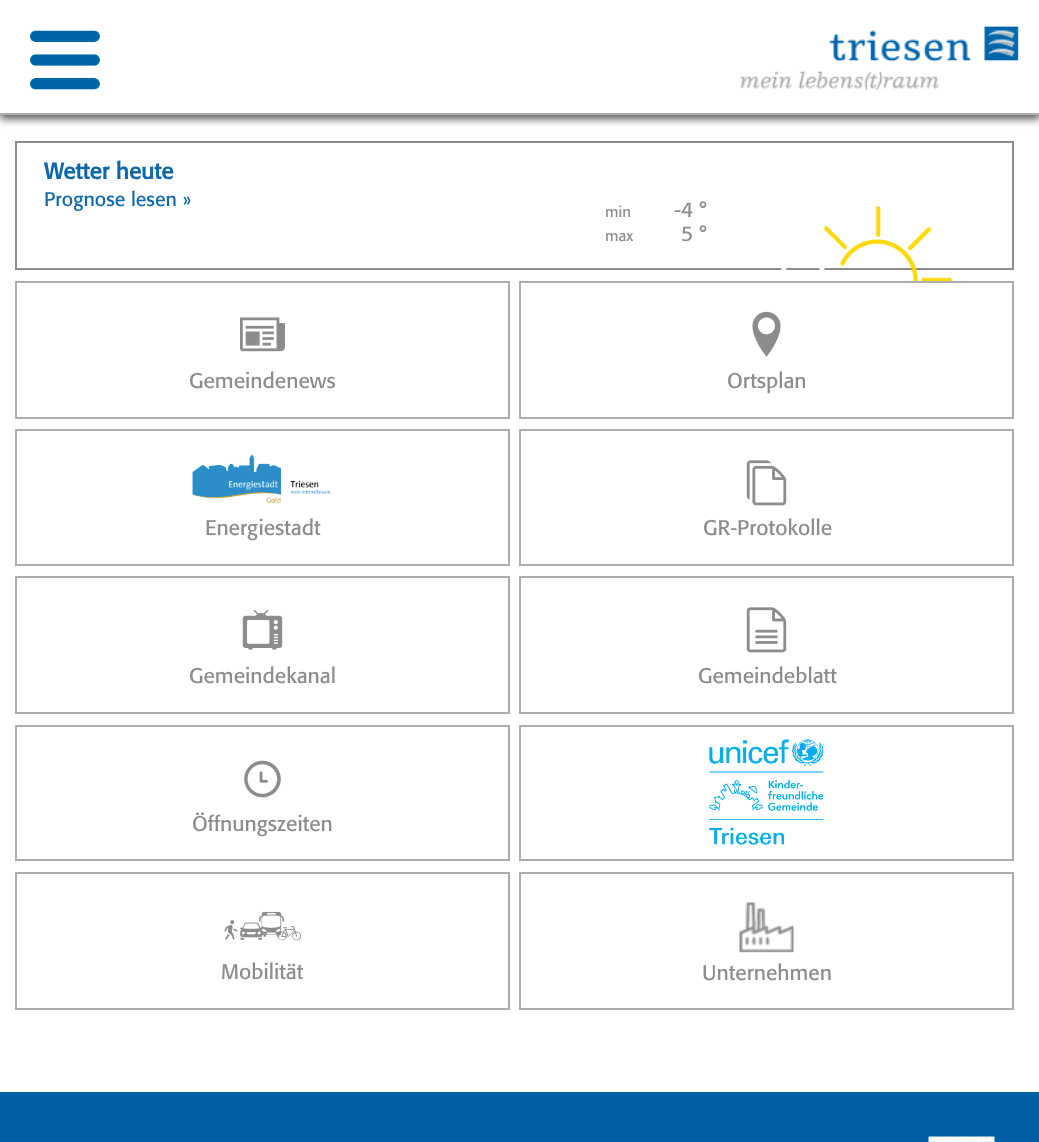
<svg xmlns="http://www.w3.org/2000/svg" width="1039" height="1142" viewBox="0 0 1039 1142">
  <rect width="100%" height="100%" fill="rgb(255,255,255)"/>
  <rect x="0" y="5" width="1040" height="114" fill="rgb(84,86,87)" filter="blur(4px)"/>
  <rect x="0" y="0" width="1039" height="113" fill="rgb(255,255,255)"/>
  <rect x="0" y="113" width="1039" height="2" fill="rgb(173,173,173)"/>
  <image x="30" y="30" width="70" height="60" href="pic1.png"/>
  <image x="740" y="26" width="279" height="64" href="pic2.png"/>
  <rect x="16" y="142" width="997" height="127" fill="none" stroke="rgb(140,140,140)" stroke-width="2"/>
  <text x="44" y="179" font-family="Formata" font-size="22.5" font-weight="bold" fill="rgb(13,104,171)">Wetter heute</text>
  <text x="44" y="206" font-family="Formata" font-size="19.5" fill="rgb(13,104,171)">Prognose lesen »</text>
  <text x="605" y="217" font-family="Formata" font-size="15" fill="rgb(140,140,140)">min</text>
  <text x="674" y="217" font-family="Formata" font-size="21" fill="rgb(140,140,140)">-4 °</text>
  <text x="605" y="241" font-family="Formata" font-size="15" fill="rgb(140,140,140)">max</text>
  <text x="681" y="241" font-family="Formata" font-size="21" fill="rgb(140,140,140)">5 °</text>
  <image x="780" y="205" width="173" height="76" href="pic3.png"/>
  <rect x="16" y="282" width="493" height="136" fill="none" stroke="rgb(173,173,173)" stroke-width="2"/>
  <image x="240" y="317" width="45" height="35" href="pic4.png"/>
  <text x="189" y="388" font-family="Formata" font-size="21" fill="rgb(140,140,140)">Gemeindenews</text>
  <rect x="520" y="282" width="493" height="136" fill="none" stroke="rgb(173,173,173)" stroke-width="2"/>
  <image x="752" y="311" width="29" height="46" href="pic5.png"/>
  <text x="727" y="388" font-family="Formata" font-size="21" fill="rgb(140,140,140)">Ortsplan</text>
  <image x="192" y="454" width="139" height="49" href="pic6.png"/>
  <rect x="16" y="430" width="493" height="135" fill="none" stroke="rgb(173,173,173)" stroke-width="2"/>
  <text x="205" y="535" font-family="Formata" font-size="21" fill="rgb(140,140,140)">Energiestadt</text>
  <rect x="520" y="430" width="493" height="135" fill="none" stroke="rgb(173,173,173)" stroke-width="2"/>
  <image x="746" y="460" width="41" height="46" href="pic7.png"/>
  <text x="703" y="535" font-family="Formata" font-size="21" fill="rgb(140,140,140)">GR-Protokolle</text>
  <rect x="16" y="577" width="493" height="136" fill="none" stroke="rgb(173,173,173)" stroke-width="2"/>
  <image x="242" y="609" width="41" height="41" href="pic8.png"/>
  <text x="189" y="683" font-family="Formata" font-size="21" fill="rgb(140,140,140)">Gemeindekanal</text>
  <rect x="520" y="577" width="493" height="136" fill="none" stroke="rgb(173,173,173)" stroke-width="2"/>
  <image x="746" y="607" width="41" height="46" href="pic9.png"/>
  <text x="698" y="683" font-family="Formata" font-size="21" fill="rgb(140,140,140)">Gemeindeblatt</text>
  <rect x="16" y="726" width="493" height="134" fill="none" stroke="rgb(173,173,173)" stroke-width="2"/>
  <image x="244" y="760" width="37" height="38" href="pic10.png"/>
  <text x="192" y="831" font-family="Formata" font-size="21" fill="rgb(140,140,140)">Öffnungszeiten</text>
  <image x="709" y="739" width="115" height="106" href="pic11.png"/>
  <rect x="520" y="726" width="493" height="134" fill="none" stroke="rgb(173,173,173)" stroke-width="2"/>
  <rect x="16" y="873" width="493" height="136" fill="none" stroke="rgb(173,173,173)" stroke-width="2"/>
  <image x="224" y="911" width="78" height="30" href="pic12.png"/>
  <text x="221" y="979" font-family="Formata" font-size="21" fill="rgb(140,140,140)">Mobilität</text>
  <rect x="520" y="873" width="493" height="136" fill="none" stroke="rgb(173,173,173)" stroke-width="2"/>
  <image x="739" y="902" width="55" height="51" href="pic13.png"/>
  <text x="702" y="980" font-family="Formata" font-size="21" fill="rgb(140,140,140)">Unternehmen</text>
  <rect x="0" y="1092" width="1039" height="50" fill="rgb(0,96,167)"/>
  <image x="928" y="1136" width="67" height="6" href="pic14.png"/>
</svg>
